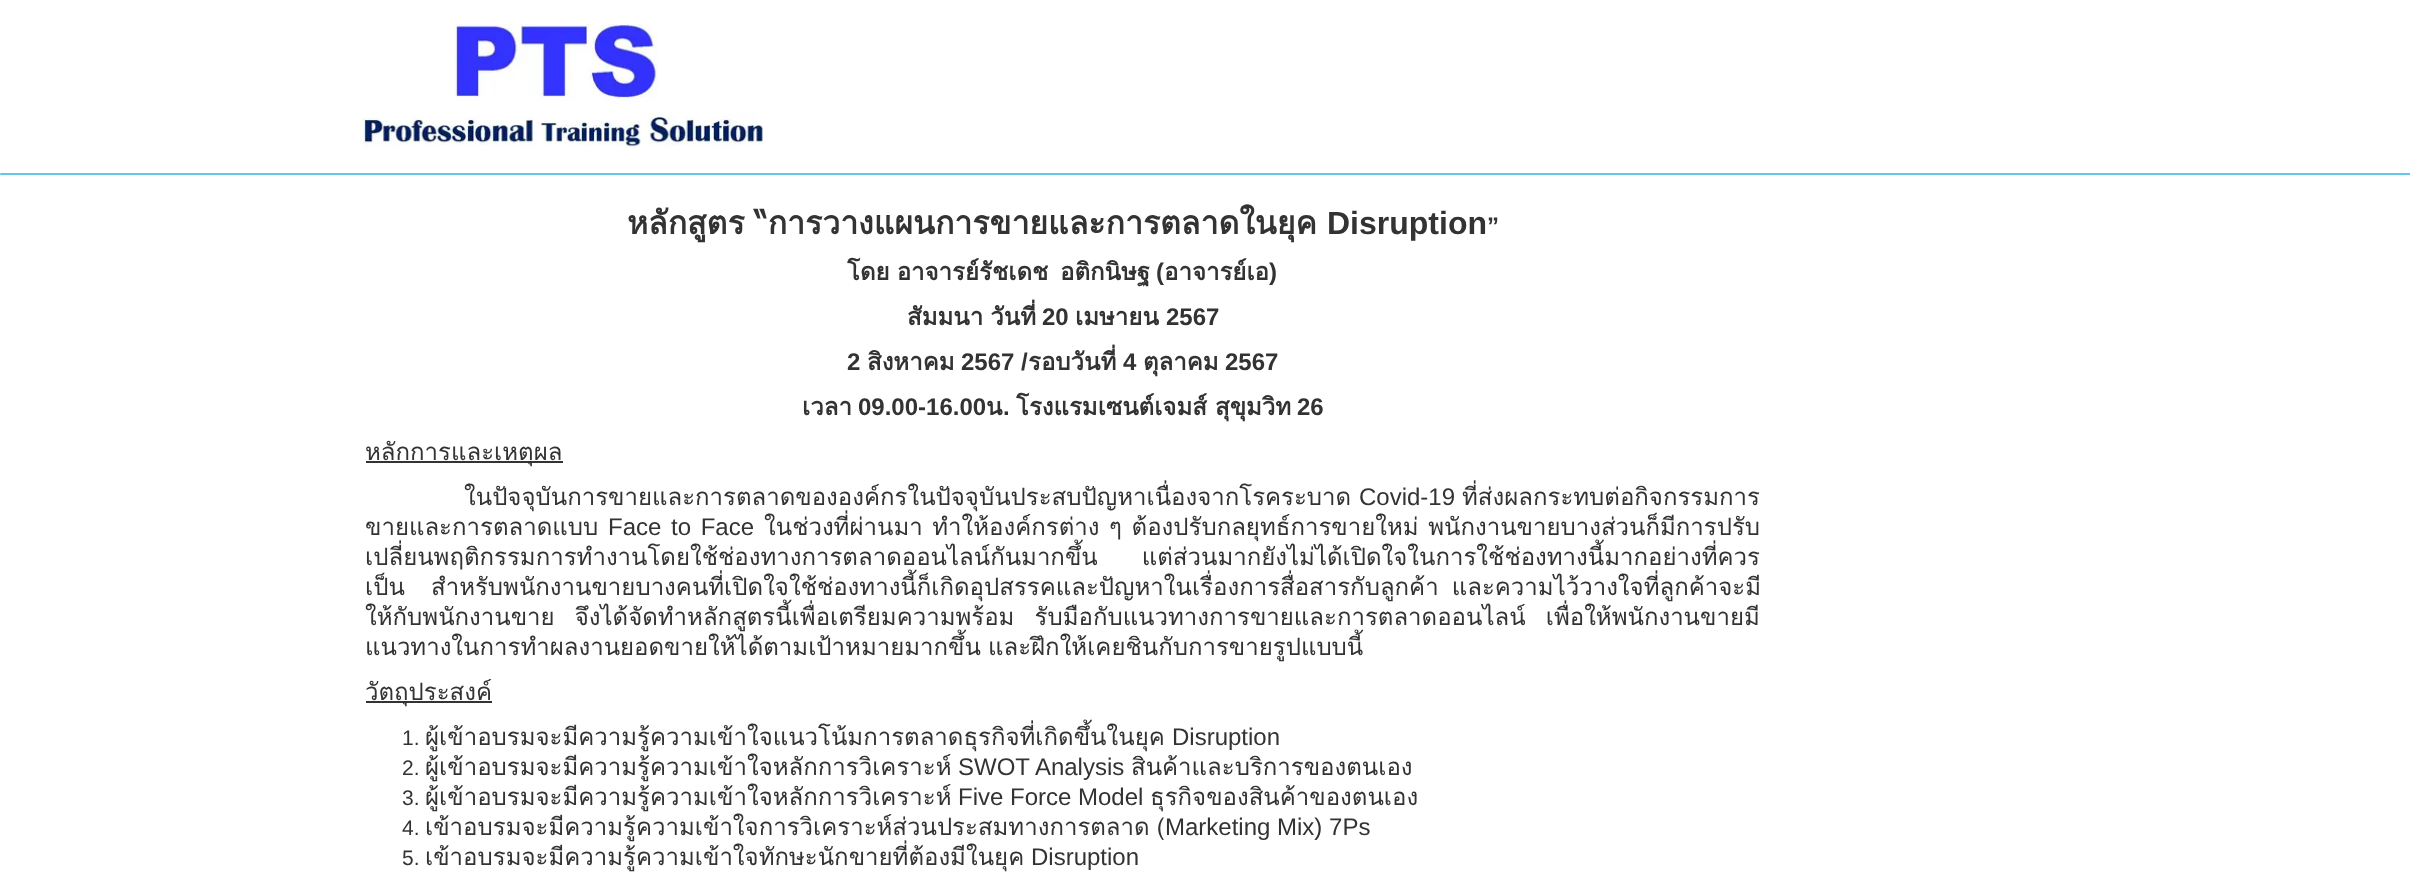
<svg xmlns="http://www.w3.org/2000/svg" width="2410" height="879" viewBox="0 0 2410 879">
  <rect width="100%" height="100%" fill="rgb(255,255,255)"/>
  <image x="359" y="24" width="405" height="124" href="pic1.png"/>
  <rect x="0" y="173" width="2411" height="2" rx="1" fill="rgb(101,199,232)"/>
  <text x="627" y="234" word-spacing="-1" font-family="Loma" font-size="32" font-weight="bold" fill="rgb(51,51,51)">หลักสูตร “การวางแผนการขายและการตลาดในยุค</text>
  <text x="1327" y="234" font-family="Liberation Sans" font-size="32" font-weight="bold" fill="rgb(51,51,51)">Disruption</text>
  <text x="1487" y="234" font-family="Liberation Sans" font-size="24" font-weight="bold" fill="rgb(51,51,51)">”</text>
  <g font-family="Loma" font-size="24" font-weight="bold" fill="rgb(51,51,51)">
    <text x="847" y="280" word-spacing="-1">โดย อาจารย์รัชเดช</text>
    <text x="1060" y="280">อติกนิษฐ</text>
  </g>
  <text x="1156" y="280" font-family="Liberation Sans" font-size="24" font-weight="bold" fill="rgb(51,51,51)">(</text>
  <text x="1164" y="280" font-family="Loma" font-size="24" font-weight="bold" fill="rgb(51,51,51)">อาจารย์เอ</text>
  <text x="1269" y="280" font-family="Liberation Sans" font-size="24" font-weight="bold" fill="rgb(51,51,51)">)</text>
  <text x="907" y="325" word-spacing="-1" font-family="Loma" font-size="24" font-weight="bold" fill="rgb(51,51,51)">สัมมนา วันที่</text>
  <text x="1042" y="325" font-family="Liberation Sans" font-size="24" font-weight="bold" fill="rgb(51,51,51)">20</text>
  <text x="1075" y="325" font-family="Loma" font-size="24" font-weight="bold" fill="rgb(51,51,51)">เมษายน</text>
  <g font-family="Liberation Sans" font-size="24" font-weight="bold" fill="rgb(51,51,51)">
    <text x="1166" y="325">2567</text>
    <text x="847" y="370">2</text>
  </g>
  <text x="867" y="370" font-family="Loma" font-size="24" font-weight="bold" fill="rgb(51,51,51)">สิงหาคม</text>
  <text x="961" y="370" font-family="Liberation Sans" font-size="24" font-weight="bold" fill="rgb(51,51,51)">2567 /</text>
  <text x="1028" y="370" font-family="Loma" font-size="24" font-weight="bold" fill="rgb(51,51,51)">รอบวันที่</text>
  <text x="1123" y="370" font-family="Liberation Sans" font-size="24" font-weight="bold" fill="rgb(51,51,51)">4</text>
  <text x="1143" y="370" font-family="Loma" font-size="24" font-weight="bold" fill="rgb(51,51,51)">ตุลาคม</text>
  <text x="1225" y="370" font-family="Liberation Sans" font-size="24" font-weight="bold" fill="rgb(51,51,51)">2567</text>
  <text x="802" y="415" font-family="Loma" font-size="24" font-weight="bold" fill="rgb(51,51,51)">เวลา</text>
  <text x="858" y="415" font-family="Liberation Sans" font-size="24" font-weight="bold" fill="rgb(51,51,51)">09.00-16.00</text>
  <text x="986" y="415" font-family="Loma" font-size="24" font-weight="bold" fill="rgb(51,51,51)">น</text>
  <text x="1003" y="415" font-family="Liberation Sans" font-size="24" font-weight="bold" fill="rgb(51,51,51)">.</text>
  <text x="1016" y="415" font-family="Loma" font-size="24" font-weight="bold" fill="rgb(51,51,51)">โรงแรมเซนต์เจมส์ สุขุมวิท</text>
  <text x="1297" y="415" font-family="Liberation Sans" font-size="24" font-weight="bold" fill="rgb(51,51,51)">26</text>
  <rect x="366" y="461" width="197" height="2" fill="rgb(51,51,51)"/>
  <g font-family="Loma" font-size="24" fill="rgb(51,51,51)">
    <text x="365" y="460">หลักการและเหตุผล</text>
    <text x="464" y="505">ในปัจจุบันการขายและการตลาดขององค์กรในปัจจุบันประสบปัญหาเนื่องจากโรคระบาด</text>
  </g>
  <text x="1359" y="505" font-family="Liberation Sans" font-size="24" fill="rgb(51,51,51)">Covid-19</text>
  <g font-family="Loma" font-size="24" fill="rgb(51,51,51)">
    <text x="1462" y="505">ที่ส่งผลกระทบต่อกิจกรรมการ</text>
    <text x="365" y="535">ขายและการตลาดแบบ</text>
  </g>
  <text x="608" y="535" word-spacing="3" font-family="Liberation Sans" font-size="24" fill="rgb(51,51,51)">Face to Face</text>
  <g font-family="Loma" font-size="24" fill="rgb(51,51,51)">
    <text x="764" y="535" word-spacing="1.5">ในช่วงที่ผ่านมา ทำให้องค์กรต่าง ๆ ต้องปรับกลยุทธ์การขายใหม่ พนักงานขายบางส่วนก็มีการปรับ</text>
    <text xml:space="preserve"><tspan x="365" y="565" word-spacing="36">เปลี่ยนพฤติกรรมการทำงานโดยใช้ช่องทางการตลาดออนไลน์กันมากขึ้น แต่ส่วนมากยังไม่ได้เปิดใจในการใช้ช่องทางนี้มากอย่างที่ควร</tspan><tspan x="365" y="595" word-spacing="5">เป็น  สำหรับพนักงานขายบางคนที่เปิดใจใช้ช่องทางนี้ก็เกิดอุปสรรคและปัญหาในเรื่องการสื่อสารกับลูกค้า และความไว้วางใจที่ลูกค้าจะมี</tspan><tspan x="365" y="625" word-spacing="12">ให้กับพนักงานขาย จึงได้จัดทำหลักสูตรนี้เพื่อเตรียมความพร้อม รับมือกับแนวทางการขายและการตลาดออนไลน์ เพื่อให้พนักงานขายมี</tspan><tspan x="365" y="655" word-spacing="-1">แนวทางในการทำผลงานยอดขายให้ได้ตามเป้าหมายมากขึ้น และฝึกให้เคยชินกับการขายรูปแบบนี้</tspan></text>
  </g>
  <rect x="366" y="701" width="126" height="2" fill="rgb(51,51,51)"/>
  <text x="365" y="700" font-family="Loma" font-size="24" fill="rgb(51,51,51)">วัตถุประสงค์</text>
  <text x="402" y="745" font-family="Liberation Sans" font-size="21" fill="rgb(51,51,51)">1.</text>
  <text x="425" y="745" font-family="Loma" font-size="24" fill="rgb(51,51,51)">ผู้เข้าอบรมจะมีความรู้ความเข้าใจแนวโน้มการตลาดธุรกิจที่เกิดขึ้นในยุค</text>
  <text x="1172" y="745" font-family="Liberation Sans" font-size="24" fill="rgb(51,51,51)">Disruption</text>
  <text x="402" y="775" font-family="Liberation Sans" font-size="21" fill="rgb(51,51,51)">2.</text>
  <text x="425" y="775" font-family="Loma" font-size="24" fill="rgb(51,51,51)">ผู้เข้าอบรมจะมีความรู้ความเข้าใจหลักการวิเคราะห์</text>
  <text x="958" y="775" font-family="Liberation Sans" font-size="24" fill="rgb(51,51,51)">SWOT Analysis</text>
  <text x="1131" y="775" font-family="Loma" font-size="24" fill="rgb(51,51,51)">สินค้าและบริการของตนเอง</text>
  <text x="402" y="805" font-family="Liberation Sans" font-size="21" fill="rgb(51,51,51)">3.</text>
  <text x="425" y="805" font-family="Loma" font-size="24" fill="rgb(51,51,51)">ผู้เข้าอบรมจะมีความรู้ความเข้าใจหลักการวิเคราะห์</text>
  <text x="958" y="805" font-family="Liberation Sans" font-size="24" fill="rgb(51,51,51)">Five Force Model</text>
  <text x="1150" y="805" font-family="Loma" font-size="24" fill="rgb(51,51,51)">ธุรกิจของสินค้าของตนเอง</text>
  <text x="402" y="835" font-family="Liberation Sans" font-size="21" fill="rgb(51,51,51)">4.</text>
  <text x="425" y="835" word-spacing="-1" font-family="Loma" font-size="24" fill="rgb(51,51,51)">เข้าอบรมจะมีความรู้ความเข้าใจการวิเคราะห์ส่วนประสมทางการตลาด (</text>
  <text x="1165" y="835" font-family="Liberation Sans" font-size="24" fill="rgb(51,51,51)">Marketing Mix) 7Ps</text>
  <text x="402" y="865" font-family="Liberation Sans" font-size="21" fill="rgb(51,51,51)">5.</text>
  <text x="425" y="865" font-family="Loma" font-size="24" fill="rgb(51,51,51)">เข้าอบรมจะมีความรู้ความเข้าใจทักษะนักขายที่ต้องมีในยุค</text>
  <text x="1031" y="865" font-family="Liberation Sans" font-size="24" fill="rgb(51,51,51)">Disruption</text>
</svg>
